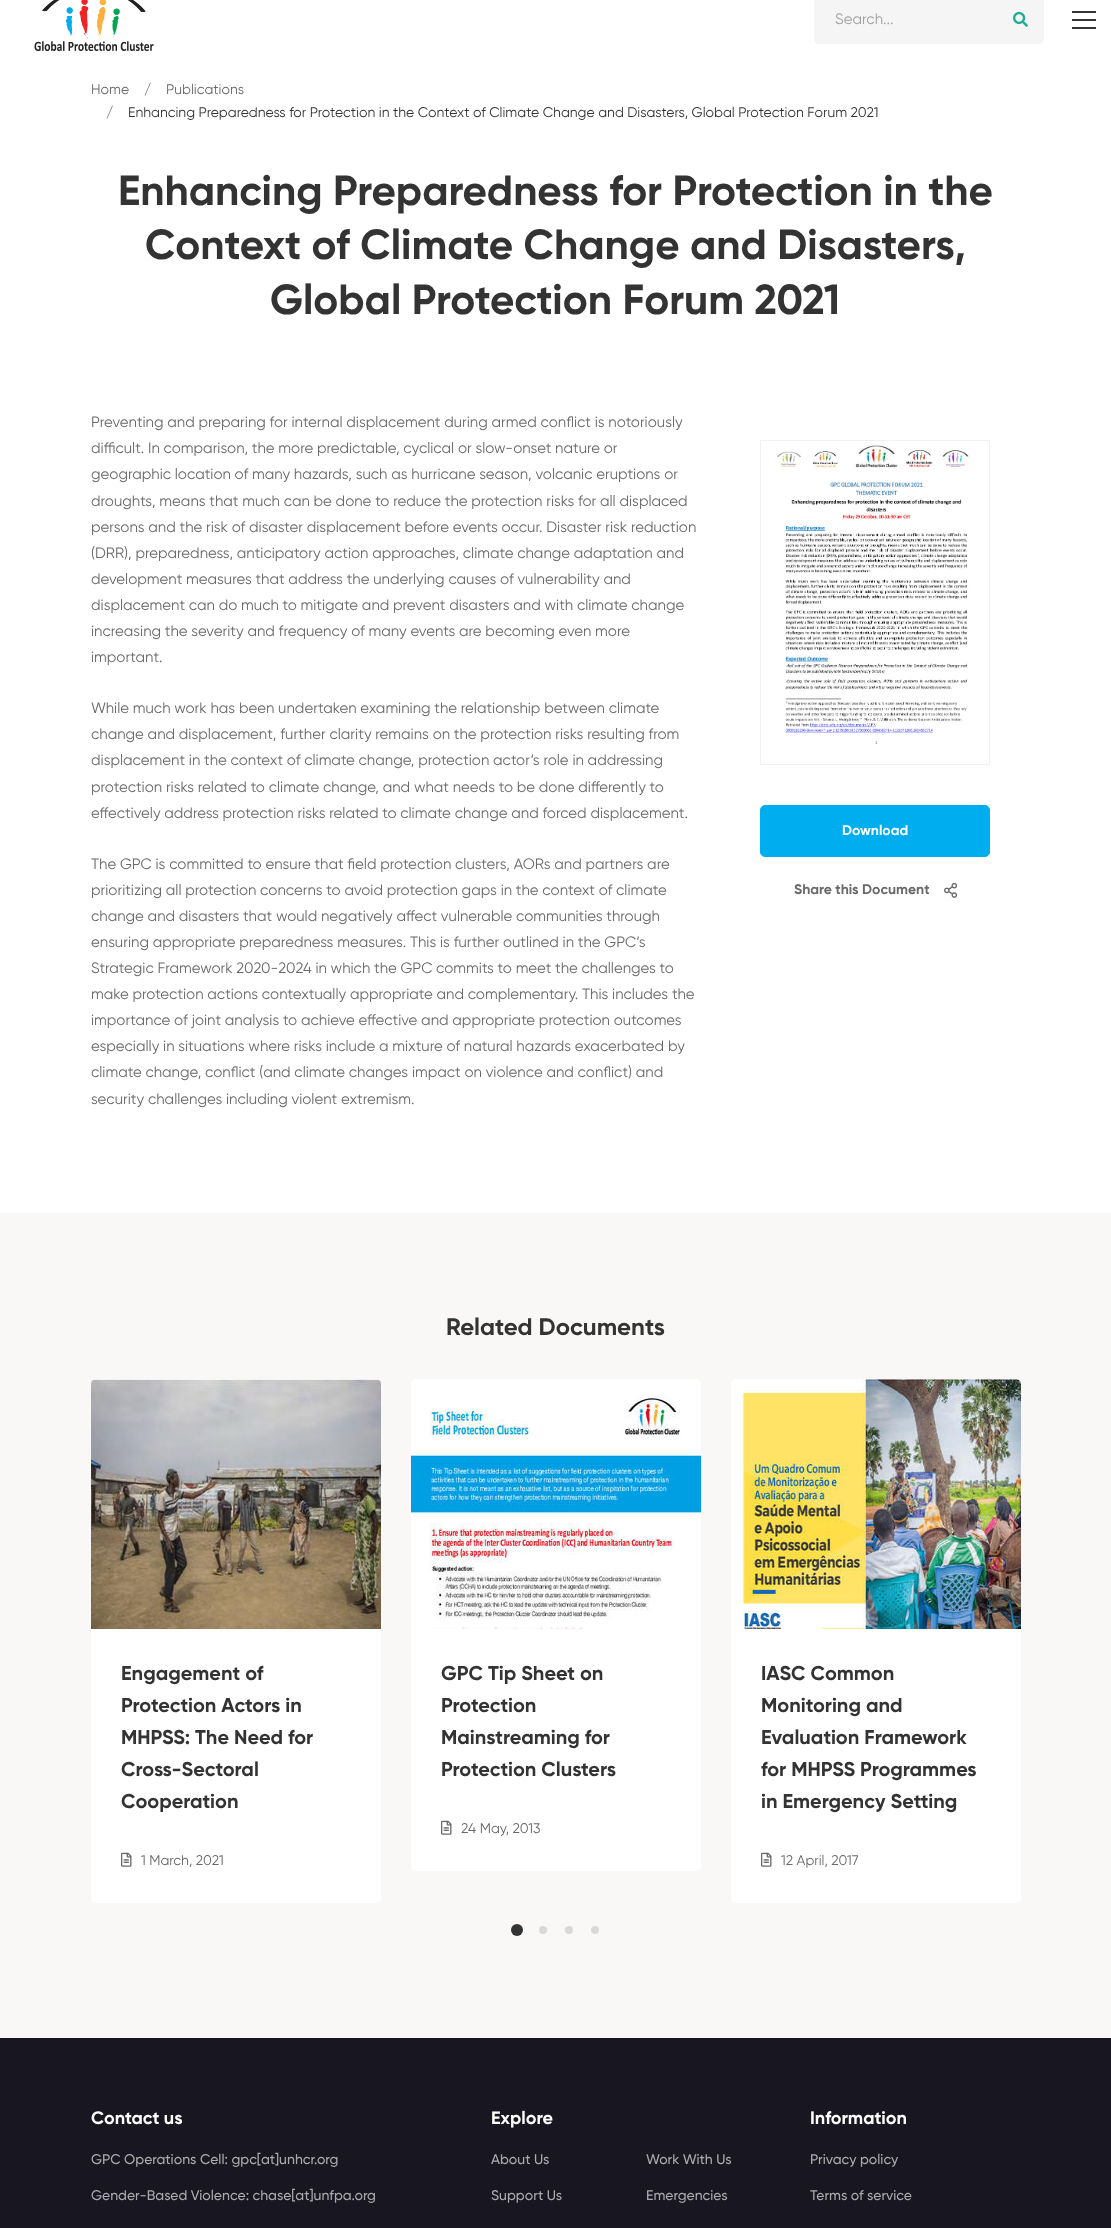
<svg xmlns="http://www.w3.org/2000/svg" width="1111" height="2228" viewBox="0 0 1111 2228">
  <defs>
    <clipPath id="clip1"><rect x="814" y="-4" width="230" height="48" rx="4"/></clipPath>
  </defs>
  <rect width="100%" height="100%" fill="rgb(255,255,255)"/>
  <image x="34" y="0" width="120" height="51" href="pic1.png"/>
  <g clip-path="url(#clip1)">
    <rect x="814" y="-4" width="230" height="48" rx="5" fill="rgb(245,245,245)"/>
  </g>
  <rect x="814.5" y="-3.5" width="229" height="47" rx="4.5" fill="none" stroke="rgb(245,245,245)"/>
  <text x="835" y="24" font-family="Gilroy" font-size="15" fill="rgb(159,159,159)">Search...</text>
  <image x="1013" y="11" width="15" height="16" href="pic2.png"/>
  <rect x="1072" y="11" width="24" height="2" fill="rgb(51,51,51)"/>
  <rect x="1072" y="19" width="24" height="2" fill="rgb(51,51,51)"/>
  <rect x="1072" y="27" width="24" height="2" fill="rgb(51,51,51)"/>
  <g font-family="Gilroy" font-size="14" fill="rgb(105,105,105)">
    <text x="91" y="94">Home</text>
    <text x="144" y="94">/</text>
    <text x="166" y="94">Publications</text>
    <text x="106" y="117">/</text>
  </g>
  <text x="128" y="117" font-family="Gilroy" font-size="14" fill="rgb(51,51,51)">Enhancing Preparedness for Protection in the Context of Climate Change and Disasters, Global Protection Forum 2021</text>
  <g font-family="Gilroy" font-size="42" font-weight="bold" fill="rgb(51,51,51)">
    <text x="118" y="205">Enhancing Preparedness for Protection in the</text>
    <text x="145" y="259">Context of Climate Change and Disasters,</text>
    <text x="270" y="314">Global Protection Forum 2021</text>
  </g>
  <g font-family="Gilroy" font-size="15" fill="rgb(105,105,105)">
    <text>
      <tspan x="91" y="427">Preventing and preparing for internal displacement during armed conflict is notoriously</tspan>
      <tspan x="91" y="453">difficult. In comparison, the more predictable, cyclical or slow-onset nature or</tspan>
      <tspan x="91" y="479">geographic location of many hazards, such as hurricane season, volcanic eruptions or</tspan>
      <tspan x="91" y="506">droughts, means that much can be done to reduce the protection risks for all displaced</tspan>
      <tspan x="91" y="532">persons and the risk of disaster displacement before events occur. Disaster risk reduction</tspan>
      <tspan x="91" y="558">(DRR), preparedness, anticipatory action approaches, climate change adaptation and</tspan>
      <tspan x="91" y="584">development measures that address the underlying causes of vulnerability and</tspan>
      <tspan x="91" y="610">displacement can do much to mitigate and prevent disasters and with climate change</tspan>
      <tspan x="91" y="636">increasing the severity and frequency of many events are becoming even more</tspan>
      <tspan x="91" y="662">important.</tspan>
    </text>
    <text>
      <tspan x="91" y="713">While much work has been undertaken examining the relationship between climate</tspan>
      <tspan x="91" y="739">change and displacement, further clarity remains on the protection risks resulting from</tspan>
      <tspan x="91" y="765">displacement in the context of climate change, protection actor’s role in addressing</tspan>
      <tspan x="91" y="792">protection risks related to climate change, and what needs to be done differently to</tspan>
      <tspan x="91" y="818">effectively address protection risks related to climate change and forced displacement.</tspan>
    </text>
    <text>
      <tspan x="91" y="869">The GPC is committed to ensure that field protection clusters, AORs and partners are</tspan>
      <tspan x="91" y="895">prioritizing all protection concerns to avoid protection gaps in the context of climate</tspan>
      <tspan x="91" y="921">change and disasters that would negatively affect vulnerable communities through</tspan>
      <tspan x="91" y="947">ensuring appropriate preparedness measures. This is further outlined in the GPC’s</tspan>
      <tspan x="91" y="973">Strategic Framework 2020-2024 in which the GPC commits to meet the challenges to</tspan>
      <tspan x="91" y="999">make protection actions contextually appropriate and complementary. This includes the</tspan>
      <tspan x="91" y="1025">importance of joint analysis to achieve effective and appropriate protection outcomes</tspan>
      <tspan x="91" y="1051">especially in situations where risks include a mixture of natural hazards exacerbated by</tspan>
      <tspan x="91" y="1077">climate change, conflict (and climate changes impact on violence and conflict) and</tspan>
      <tspan x="91" y="1104">security challenges including violent extremism.</tspan>
    </text>
  </g>
  <rect x="760.5" y="440.5" width="229" height="324" fill="none" stroke="rgb(241,241,241)"/>
  <image x="777" y="445" width="192" height="299" href="pic3.png"/>
  <rect x="760.5" y="805.5" width="229" height="51" rx="4.5" fill="rgb(0,174,239)" stroke="rgb(0,174,239)"/>
  <text x="842" y="835" font-family="Gilroy" font-size="14" font-weight="bold" fill="rgb(255,255,255)">Download</text>
  <text x="794" y="894" font-family="Gilroy" font-size="14" font-weight="bold" fill="rgb(105,105,105)">Share this Document</text>
  <image x="944" y="882" width="14" height="16" href="pic4.png"/>
  <rect x="0" y="1213" width="1111" height="825" fill="rgb(250,248,246)"/>
  <text x="446" y="1335" font-family="Gilroy" font-size="24" font-weight="bold" fill="rgb(51,51,51)">Related Documents</text>
  <rect x="91" y="1379" width="290" height="524" rx="5" fill="rgb(255,255,255)"/>
  <image x="91" y="1379" width="290" height="250" href="pic5.png"/>
  <g font-family="Gilroy" font-size="20" font-weight="bold" fill="rgb(51,51,51)">
    <text>
      <tspan x="121" y="1680">Engagement of</tspan>
      <tspan x="121" y="1712">Protection Actors in</tspan>
      <tspan x="121" y="1744">MHPSS: The Need for</tspan>
      <tspan x="121" y="1776">Cross-Sectoral</tspan>
      <tspan x="121" y="1808">Cooperation</tspan>
    </text>
  </g>
  <image x="121" y="1852" width="11" height="15" href="pic6.png"/>
  <text x="141" y="1865" font-family="Gilroy" font-size="14" fill="rgb(105,105,105)">1 March, 2021</text>
  <rect x="411" y="1379" width="290" height="492" rx="5" fill="rgb(255,255,255)"/>
  <image x="411" y="1395" width="290" height="234" href="pic7.png"/>
  <g font-family="Gilroy" font-size="20" font-weight="bold" fill="rgb(51,51,51)">
    <text>
      <tspan x="441" y="1680">GPC Tip Sheet on</tspan>
      <tspan x="441" y="1712">Protection</tspan>
      <tspan x="441" y="1744">Mainstreaming for</tspan>
      <tspan x="441" y="1776">Protection Clusters</tspan>
    </text>
  </g>
  <image x="441" y="1820" width="11" height="15" href="pic6.png"/>
  <text x="461" y="1833" font-family="Gilroy" font-size="14" fill="rgb(105,105,105)">24 May, 2013</text>
  <rect x="731" y="1379" width="290" height="524" rx="5" fill="rgb(255,255,255)"/>
  <image x="739" y="1379" width="282" height="250" href="pic8.png"/>
  <g font-family="Gilroy" font-size="20" font-weight="bold" fill="rgb(51,51,51)">
    <text>
      <tspan x="761" y="1680">IASC Common</tspan>
      <tspan x="761" y="1712">Monitoring and</tspan>
      <tspan x="761" y="1744">Evaluation Framework</tspan>
      <tspan x="761" y="1776">for MHPSS Programmes</tspan>
      <tspan x="761" y="1808">in Emergency Setting</tspan>
    </text>
  </g>
  <image x="761" y="1852" width="11" height="15" href="pic6.png"/>
  <text x="781" y="1865" font-family="Gilroy" font-size="14" fill="rgb(105,105,105)">12 April, 2017</text>
  <circle cx="517" cy="1930" r="6" fill="rgb(51,51,51)"/>
  <circle cx="543" cy="1930" r="4" fill="rgb(216,216,216)"/>
  <circle cx="569" cy="1930" r="4" fill="rgb(216,216,216)"/>
  <circle cx="595" cy="1930" r="4" fill="rgb(216,216,216)"/>
  <rect x="0" y="2038" width="1111" height="190" fill="rgb(23,22,33)"/>
  <text x="91" y="2124" font-family="Gilroy" font-size="18" font-weight="bold" fill="rgb(255,255,255)">Contact us</text>
  <g font-family="Gilroy" font-size="14" font-weight="500" fill="rgb(171,171,171)">
    <text x="91" y="2164">GPC Operations Cell: gpc[at]unhcr.org</text>
    <text x="91" y="2200">Gender-Based Violence: chase[at]unfpa.org</text>
  </g>
  <text x="491" y="2124" font-family="Gilroy" font-size="18" font-weight="bold" fill="rgb(255,255,255)">Explore</text>
  <g font-family="Gilroy" font-size="14" font-weight="500" fill="rgb(171,171,171)">
    <text x="491" y="2164">About Us</text>
    <text x="646" y="2164">Work With Us</text>
    <text x="491" y="2200">Support Us</text>
    <text x="646" y="2200">Emergencies</text>
  </g>
  <text x="810" y="2124" font-family="Gilroy" font-size="18" font-weight="bold" fill="rgb(255,255,255)">Information</text>
  <g font-family="Gilroy" font-size="14" font-weight="500" fill="rgb(171,171,171)">
    <text x="810" y="2164">Privacy policy</text>
    <text x="810" y="2200">Terms of service</text>
  </g>
</svg>
